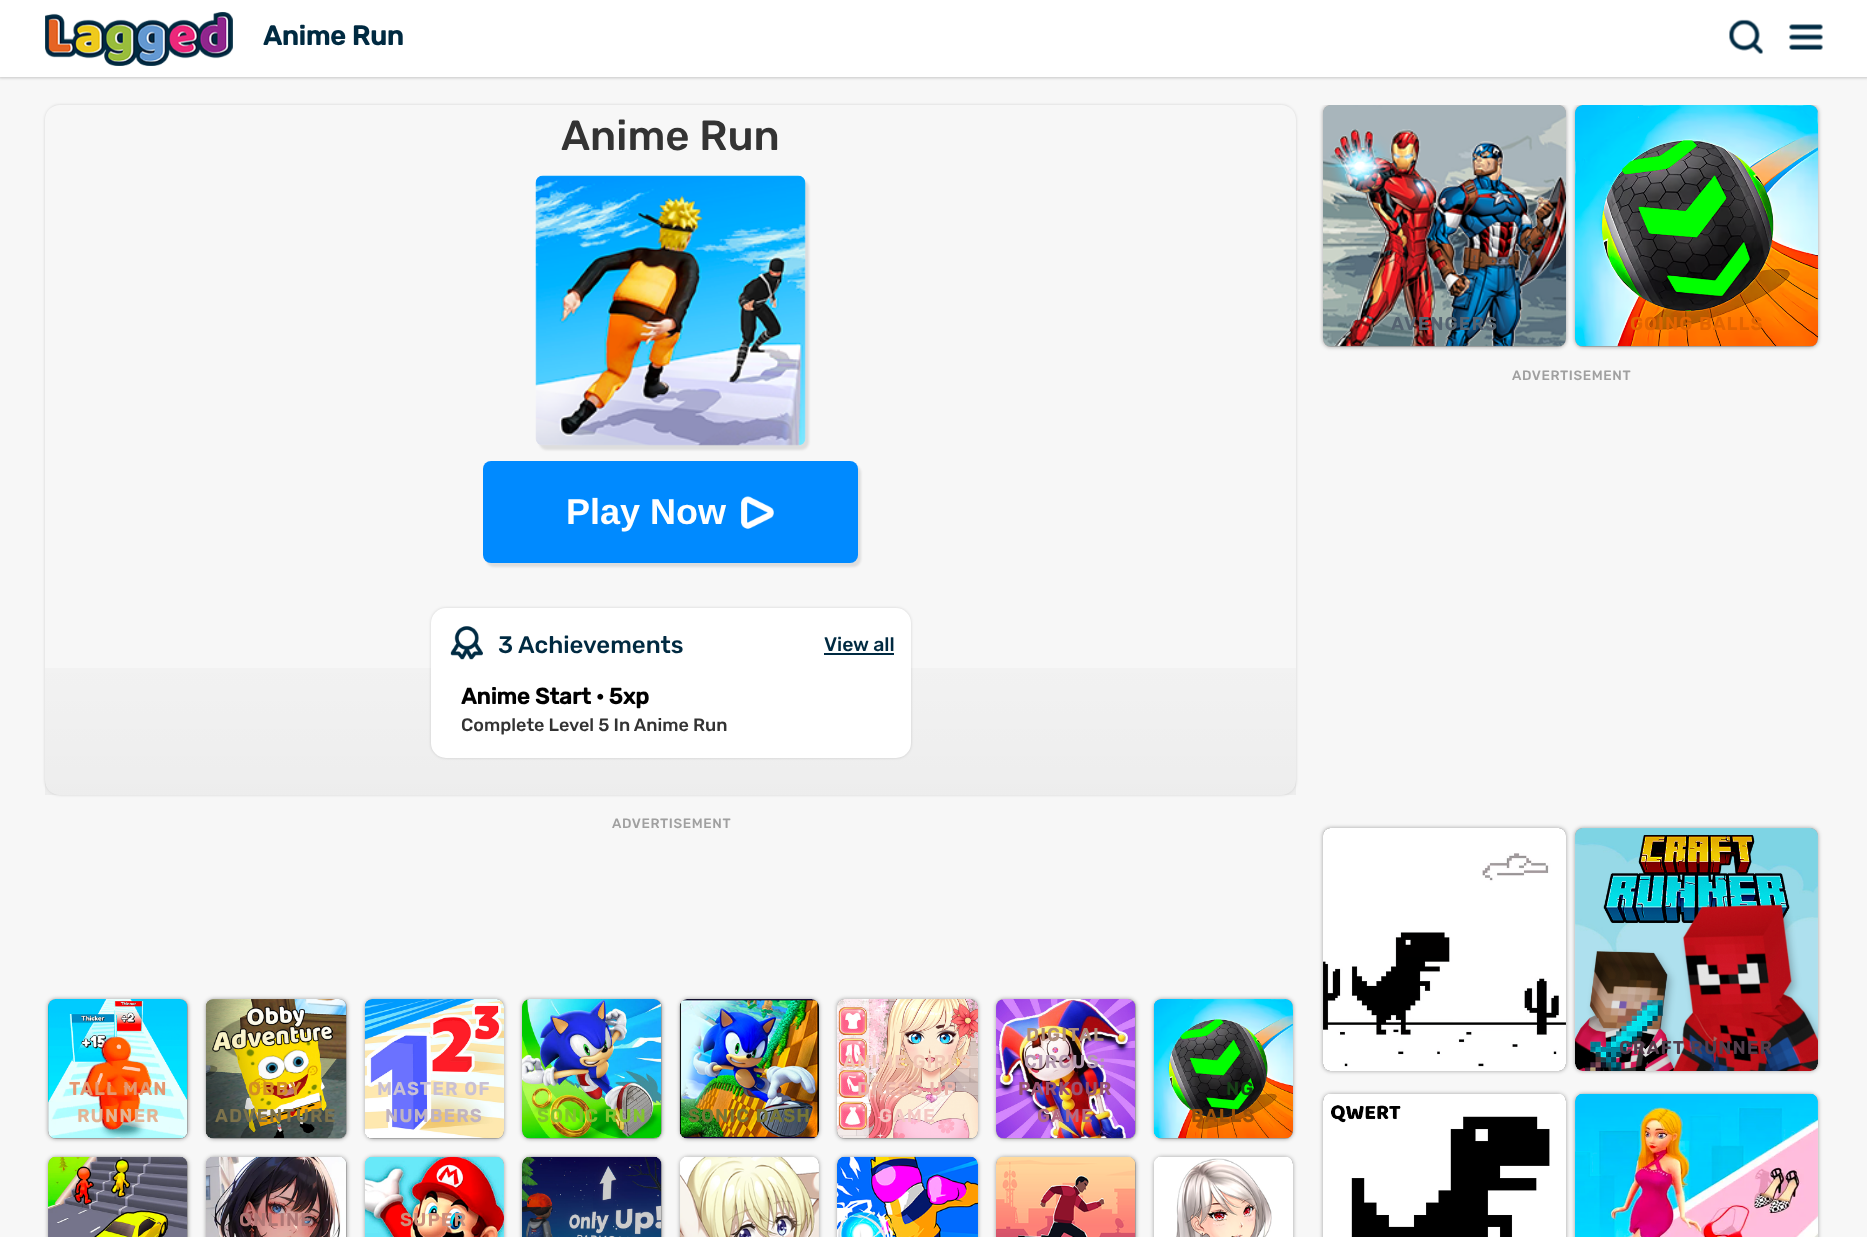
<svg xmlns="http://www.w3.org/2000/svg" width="1867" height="1237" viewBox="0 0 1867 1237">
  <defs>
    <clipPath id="clip1"><path d="M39 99H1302V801H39ZM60 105H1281C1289.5 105 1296 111.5 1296 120V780C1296 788.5 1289.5 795 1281 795H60C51.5 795 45 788.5 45 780V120C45 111.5 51.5 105 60 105Z" clip-rule="evenodd"/></clipPath>
    <linearGradient id="g1" gradientUnits="userSpaceOnUse" x1="671" y1="105" x2="671" y2="795"><stop offset="0.6" stop-color="rgb(0,0,0)" stop-opacity="0"/><stop offset="1" stop-color="rgb(0,0,0)" stop-opacity="0.04"/></linearGradient>
    <clipPath id="clip2"><rect x="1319" y="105" width="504" height="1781"/></clipPath>
  </defs>
  <rect width="100%" height="100%" fill="rgb(247,247,247)"/>
  <rect x="-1" y="-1" width="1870" height="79" fill="rgba(0,0,0,0.2)" filter="blur(1.5px)"/>
  <rect x="0" y="0" width="1867" height="77" fill="rgb(255,255,255)"/>
  <image x="45" y="12" width="188" height="54" href="pic1.png"/>
  <text x="263" y="45" font-family="Rubik" font-size="27" font-weight="bold" fill="rgb(0,42,65)">Anime Run</text>
  <image x="1729" y="19" width="34" height="35" href="pic2.png"/>
  <image x="1789" y="24" width="34" height="26" href="pic3.png"/>
  <g clip-path="url(#clip1)">
    <rect x="45" y="105" width="1251" height="690" rx="15" fill="rgba(0,0,0,0.15)" filter="blur(1.5px)"/>
  </g>
  <rect x="45" y="668" width="1251" height="127" fill="url(#g1)"/>
  <text x="561" y="150" font-family="Rubik" font-size="42" font-weight="500" fill="rgb(51,51,51)">Anime Run</text>
  <rect x="539" y="180" width="270" height="270" rx="8" fill="rgba(0,0,0,0.1)" filter="blur(1px)"/>
  <image x="535" y="175" width="271" height="271" href="pic4.png"/>
  <rect x="486" y="465" width="375" height="102" rx="8" fill="rgba(0,0,0,0.1)" filter="blur(1px)"/>
  <rect x="483" y="461" width="375" height="102" rx="8" fill="rgb(0,138,255)"/>
  <text x="566" y="524" font-family="Liberation Sans" font-size="36" font-weight="bold" fill="rgb(255,255,255)">Play Now</text>
  <image x="741" y="496" width="33" height="33" href="pic5.png"/>
  <rect x="431" y="608" width="480" height="150" rx="15" fill="rgba(0,0,0,0.15)" filter="blur(1.5px)"/>
  <rect x="431" y="608" width="480" height="150" rx="15" fill="rgb(255,255,255)"/>
  <image x="450" y="626" width="33" height="34" href="pic6.png"/>
  <text x="498" y="653" font-family="Rubik" font-size="24" font-weight="500" fill="rgb(0,42,65)">3 Achievements</text>
  <text x="824" y="651" font-family="Rubik" font-size="19.5" font-weight="500" fill="rgb(0,42,65)">View all</text>
  <rect x="824" y="653" width="70" height="2" fill="rgb(0,42,65)"/>
  <text x="461" y="704" font-family="Rubik" font-size="22.5" font-weight="bold" fill="rgb(0,0,0)">Anime Start · 5xp</text>
  <text x="461" y="731" font-family="Rubik" font-size="18" font-weight="500" fill="rgb(51,51,51)">Complete Level 5 In Anime Run</text>
  <text x="612" y="828" font-family="Rubik" font-size="13.5" font-weight="500" letter-spacing="0.6" fill="rgb(160,160,160)">ADVERTISEMENT</text>
  <rect x="48" y="999" width="140" height="140" rx="8" fill="rgba(0,0,0,0.35)" filter="blur(2px)"/>
  <rect x="48" y="999" width="140" height="140" rx="8" fill="rgba(0,0,0,0.18)"/>
  <image x="48" y="999" width="140" height="139" href="pic7.png"/>
  <text x="69" y="1095" font-family="Rubik" font-size="18" font-weight="bold" letter-spacing="1.5" fill="rgb(229,152,113)">TALL MAN</text>
  <text x="77" y="1122" font-family="Rubik" font-size="18" font-weight="bold" letter-spacing="1.5" fill="rgb(227,180,148)">RUNNER</text>
  <rect x="206" y="999" width="141" height="140" rx="8" fill="rgba(0,0,0,0.35)" filter="blur(2px)"/>
  <rect x="206" y="999" width="141" height="140" rx="8" fill="rgba(0,0,0,0.18)"/>
  <image x="205" y="999" width="142" height="140" href="pic8.png"/>
  <text x="248" y="1095" font-family="Rubik" font-size="18" font-weight="bold" letter-spacing="1.5" fill="rgb(211,143,35)">OBBY</text>
  <text x="215" y="1122" font-family="Rubik" font-size="18" font-weight="bold" letter-spacing="1.5" fill="rgb(125,114,75)">ADVENTURE</text>
  <rect x="365" y="999" width="139" height="140" rx="8" fill="rgba(0,0,0,0.35)" filter="blur(2px)"/>
  <rect x="365" y="999" width="139" height="140" rx="8" fill="rgba(0,0,0,0.18)"/>
  <image x="364" y="999" width="140" height="140" href="pic9.png"/>
  <text x="377" y="1095" font-family="Rubik" font-size="18" font-weight="bold" letter-spacing="1.5" fill="rgb(200,192,212)">MASTER OF</text>
  <text x="385" y="1122" font-family="Rubik" font-size="18" font-weight="bold" letter-spacing="1.5" fill="rgb(192,180,194)">NUMBERS</text>
  <rect x="522" y="999" width="140" height="140" rx="8" fill="rgba(0,0,0,0.35)" filter="blur(2px)"/>
  <rect x="522" y="999" width="140" height="140" rx="8" fill="rgba(0,0,0,0.18)"/>
  <image x="522" y="999" width="140" height="140" href="pic10.png"/>
  <text x="537" y="1122" font-family="Rubik" font-size="18" font-weight="bold" letter-spacing="1.5" fill="rgb(130,195,47)">SONIC RUN</text>
  <rect x="680" y="999" width="139" height="140" rx="8" fill="rgba(0,0,0,0.35)" filter="blur(2px)"/>
  <rect x="680" y="999" width="139" height="140" rx="8" fill="rgba(0,0,0,0.18)"/>
  <image x="679" y="999" width="140" height="140" href="pic11.png"/>
  <text x="688" y="1122" font-family="Rubik" font-size="18" font-weight="bold" letter-spacing="1.5" fill="rgb(119,118,54)">SONIC DASH</text>
  <rect x="837" y="999" width="141" height="140" rx="8" fill="rgba(0,0,0,0.35)" filter="blur(2px)"/>
  <rect x="837" y="999" width="141" height="140" rx="8" fill="rgba(0,0,0,0.18)"/>
  <image x="837" y="999" width="141" height="140" href="pic12.png"/>
  <text x="843" y="1068" font-family="Rubik" font-size="18" font-weight="bold" letter-spacing="1.5" fill="rgb(242,199,183)">ANIME GIRLS</text>
  <text x="857" y="1095" font-family="Rubik" font-size="18" font-weight="bold" letter-spacing="1.5" fill="rgb(234,180,171)">DRESS UP</text>
  <text x="879" y="1122" font-family="Rubik" font-size="18" font-weight="bold" letter-spacing="1.5" fill="rgb(245,200,196)">GAME</text>
  <rect x="996" y="999" width="140" height="140" rx="8" fill="rgba(0,0,0,0.35)" filter="blur(2px)"/>
  <rect x="996" y="999" width="140" height="140" rx="8" fill="rgba(0,0,0,0.18)"/>
  <image x="996" y="999" width="140" height="140" href="pic13.png"/>
  <text x="1026" y="1041" font-family="Rubik" font-size="18" font-weight="bold" letter-spacing="1.5" fill="rgb(174,141,123)">DIGITAL</text>
  <text x="1024" y="1068" font-family="Rubik" font-size="18" font-weight="bold" letter-spacing="1.5" fill="rgb(180,154,176)">CIRCUS:</text>
  <text x="1018" y="1095" font-family="Rubik" font-size="18" font-weight="bold" letter-spacing="1.5" fill="rgb(152,82,112)">PARKOUR</text>
  <text x="1037" y="1122" font-family="Rubik" font-size="18" font-weight="bold" letter-spacing="1.5" fill="rgb(178,106,131)">GAME</text>
  <rect x="1154" y="999" width="139" height="140" rx="8" fill="rgba(0,0,0,0.35)" filter="blur(2px)"/>
  <rect x="1154" y="999" width="139" height="140" rx="8" fill="rgba(0,0,0,0.18)"/>
  <image x="1153" y="999" width="140" height="140" href="pic14.png"/>
  <text x="1226" y="1095" font-family="Rubik" font-size="18" font-weight="bold" letter-spacing="1.5" fill="rgb(23,64,23)">NG</text>
  <text x="1191" y="1122" font-family="Rubik" font-size="18" font-weight="bold" letter-spacing="1.5" fill="rgb(154,80,9)">BALLS</text>
  <rect x="48" y="1157" width="140" height="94" rx="8" fill="rgba(0,0,0,0.35)" filter="blur(2px)"/>
  <rect x="48" y="1157" width="140" height="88" rx="8" fill="rgba(0,0,0,0.18)"/>
  <image x="48" y="1156" width="140" height="81" href="pic15.png"/>
  <rect x="206" y="1157" width="141" height="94" rx="8" fill="rgba(0,0,0,0.35)" filter="blur(2px)"/>
  <rect x="206" y="1157" width="141" height="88" rx="8" fill="rgba(0,0,0,0.18)"/>
  <image x="205" y="1156" width="142" height="81" href="pic16.png"/>
  <text x="239" y="1226" font-family="Rubik" font-size="18" font-weight="bold" letter-spacing="1.5" fill="rgb(175,119,117)">ONLINE</text>
  <rect x="365" y="1157" width="139" height="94" rx="8" fill="rgba(0,0,0,0.35)" filter="blur(2px)"/>
  <rect x="365" y="1157" width="139" height="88" rx="8" fill="rgba(0,0,0,0.18)"/>
  <image x="364" y="1156" width="140" height="81" href="pic17.png"/>
  <text x="400" y="1226" font-family="Rubik" font-size="18" font-weight="bold" letter-spacing="1.5" fill="rgb(204,143,124)">SUPER</text>
  <rect x="522" y="1157" width="140" height="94" rx="8" fill="rgba(0,0,0,0.35)" filter="blur(2px)"/>
  <rect x="522" y="1157" width="140" height="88" rx="8" fill="rgba(0,0,0,0.18)"/>
  <image x="522" y="1156" width="140" height="81" href="pic18.png"/>
  <rect x="680" y="1157" width="139" height="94" rx="8" fill="rgba(0,0,0,0.35)" filter="blur(2px)"/>
  <rect x="680" y="1157" width="139" height="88" rx="8" fill="rgba(0,0,0,0.18)"/>
  <image x="679" y="1156" width="140" height="81" href="pic19.png"/>
  <rect x="837" y="1157" width="141" height="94" rx="8" fill="rgba(0,0,0,0.35)" filter="blur(2px)"/>
  <rect x="837" y="1157" width="141" height="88" rx="8" fill="rgba(0,0,0,0.18)"/>
  <image x="837" y="1156" width="141" height="81" href="pic20.png"/>
  <rect x="996" y="1157" width="140" height="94" rx="8" fill="rgba(0,0,0,0.35)" filter="blur(2px)"/>
  <rect x="996" y="1157" width="140" height="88" rx="8" fill="rgba(0,0,0,0.18)"/>
  <image x="996" y="1156" width="140" height="81" href="pic21.png"/>
  <rect x="1154" y="1157" width="139" height="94" rx="8" fill="rgba(0,0,0,0.35)" filter="blur(2px)"/>
  <rect x="1154" y="1157" width="139" height="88" rx="8" fill="rgba(0,0,0,0.18)"/>
  <image x="1154" y="1157" width="139" height="80" href="pic22.png"/>
  <g clip-path="url(#clip2)">
    <rect x="1323" y="105" width="243" height="242" rx="8" fill="rgba(0,0,0,0.35)" filter="blur(2px)"/>
  </g>
  <rect x="1323" y="105" width="243" height="242" rx="8" fill="rgba(0,0,0,0.18)"/>
  <image x="1323" y="105" width="243" height="242" href="pic23.png"/>
  <text x="1391" y="330" font-family="Rubik" font-size="18" font-weight="bold" letter-spacing="1.5" fill="rgb(85,99,113)">AVENGERS</text>
  <g clip-path="url(#clip2)">
    <rect x="1575" y="105" width="243" height="242" rx="8" fill="rgba(0,0,0,0.35)" filter="blur(2px)"/>
  </g>
  <rect x="1575" y="105" width="243" height="242" rx="8" fill="rgba(0,0,0,0.18)"/>
  <image x="1575" y="105" width="243" height="242" href="pic24.png"/>
  <text x="1630" y="330" font-family="Rubik" font-size="18" font-weight="bold" letter-spacing="1.5" fill="rgb(228,101,0)">GOING BALLS</text>
  <text x="1512" y="380" font-family="Rubik" font-size="13.5" font-weight="500" letter-spacing="0.6" fill="rgb(160,160,160)">ADVERTISEMENT</text>
  <rect x="1323" y="828" width="243" height="243" rx="8" fill="rgba(0,0,0,0.35)" filter="blur(2px)"/>
  <rect x="1323" y="828" width="243" height="243" rx="8" fill="rgba(0,0,0,0.18)"/>
  <image x="1323" y="828" width="243" height="243" href="pic25.png"/>
  <rect x="1575" y="828" width="243" height="243" rx="8" fill="rgba(0,0,0,0.35)" filter="blur(2px)"/>
  <rect x="1575" y="828" width="243" height="243" rx="8" fill="rgba(0,0,0,0.18)"/>
  <image x="1575" y="828" width="243" height="243" href="pic26.png"/>
  <text x="1619" y="1054" font-family="Rubik" font-size="18" font-weight="bold" letter-spacing="1.5" fill="rgb(84,62,77)">CRAFT RUNNER</text>
  <rect x="1323" y="1094" width="243" height="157" rx="8" fill="rgba(0,0,0,0.35)" filter="blur(2px)"/>
  <rect x="1323" y="1094" width="243" height="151" rx="8" fill="rgba(0,0,0,0.18)"/>
  <image x="1323" y="1094" width="243" height="143" href="pic27.png"/>
  <rect x="1575" y="1094" width="243" height="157" rx="8" fill="rgba(0,0,0,0.35)" filter="blur(2px)"/>
  <rect x="1575" y="1094" width="243" height="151" rx="8" fill="rgba(0,0,0,0.18)"/>
  <image x="1575" y="1093" width="243" height="144" href="pic28.png"/>
</svg>
